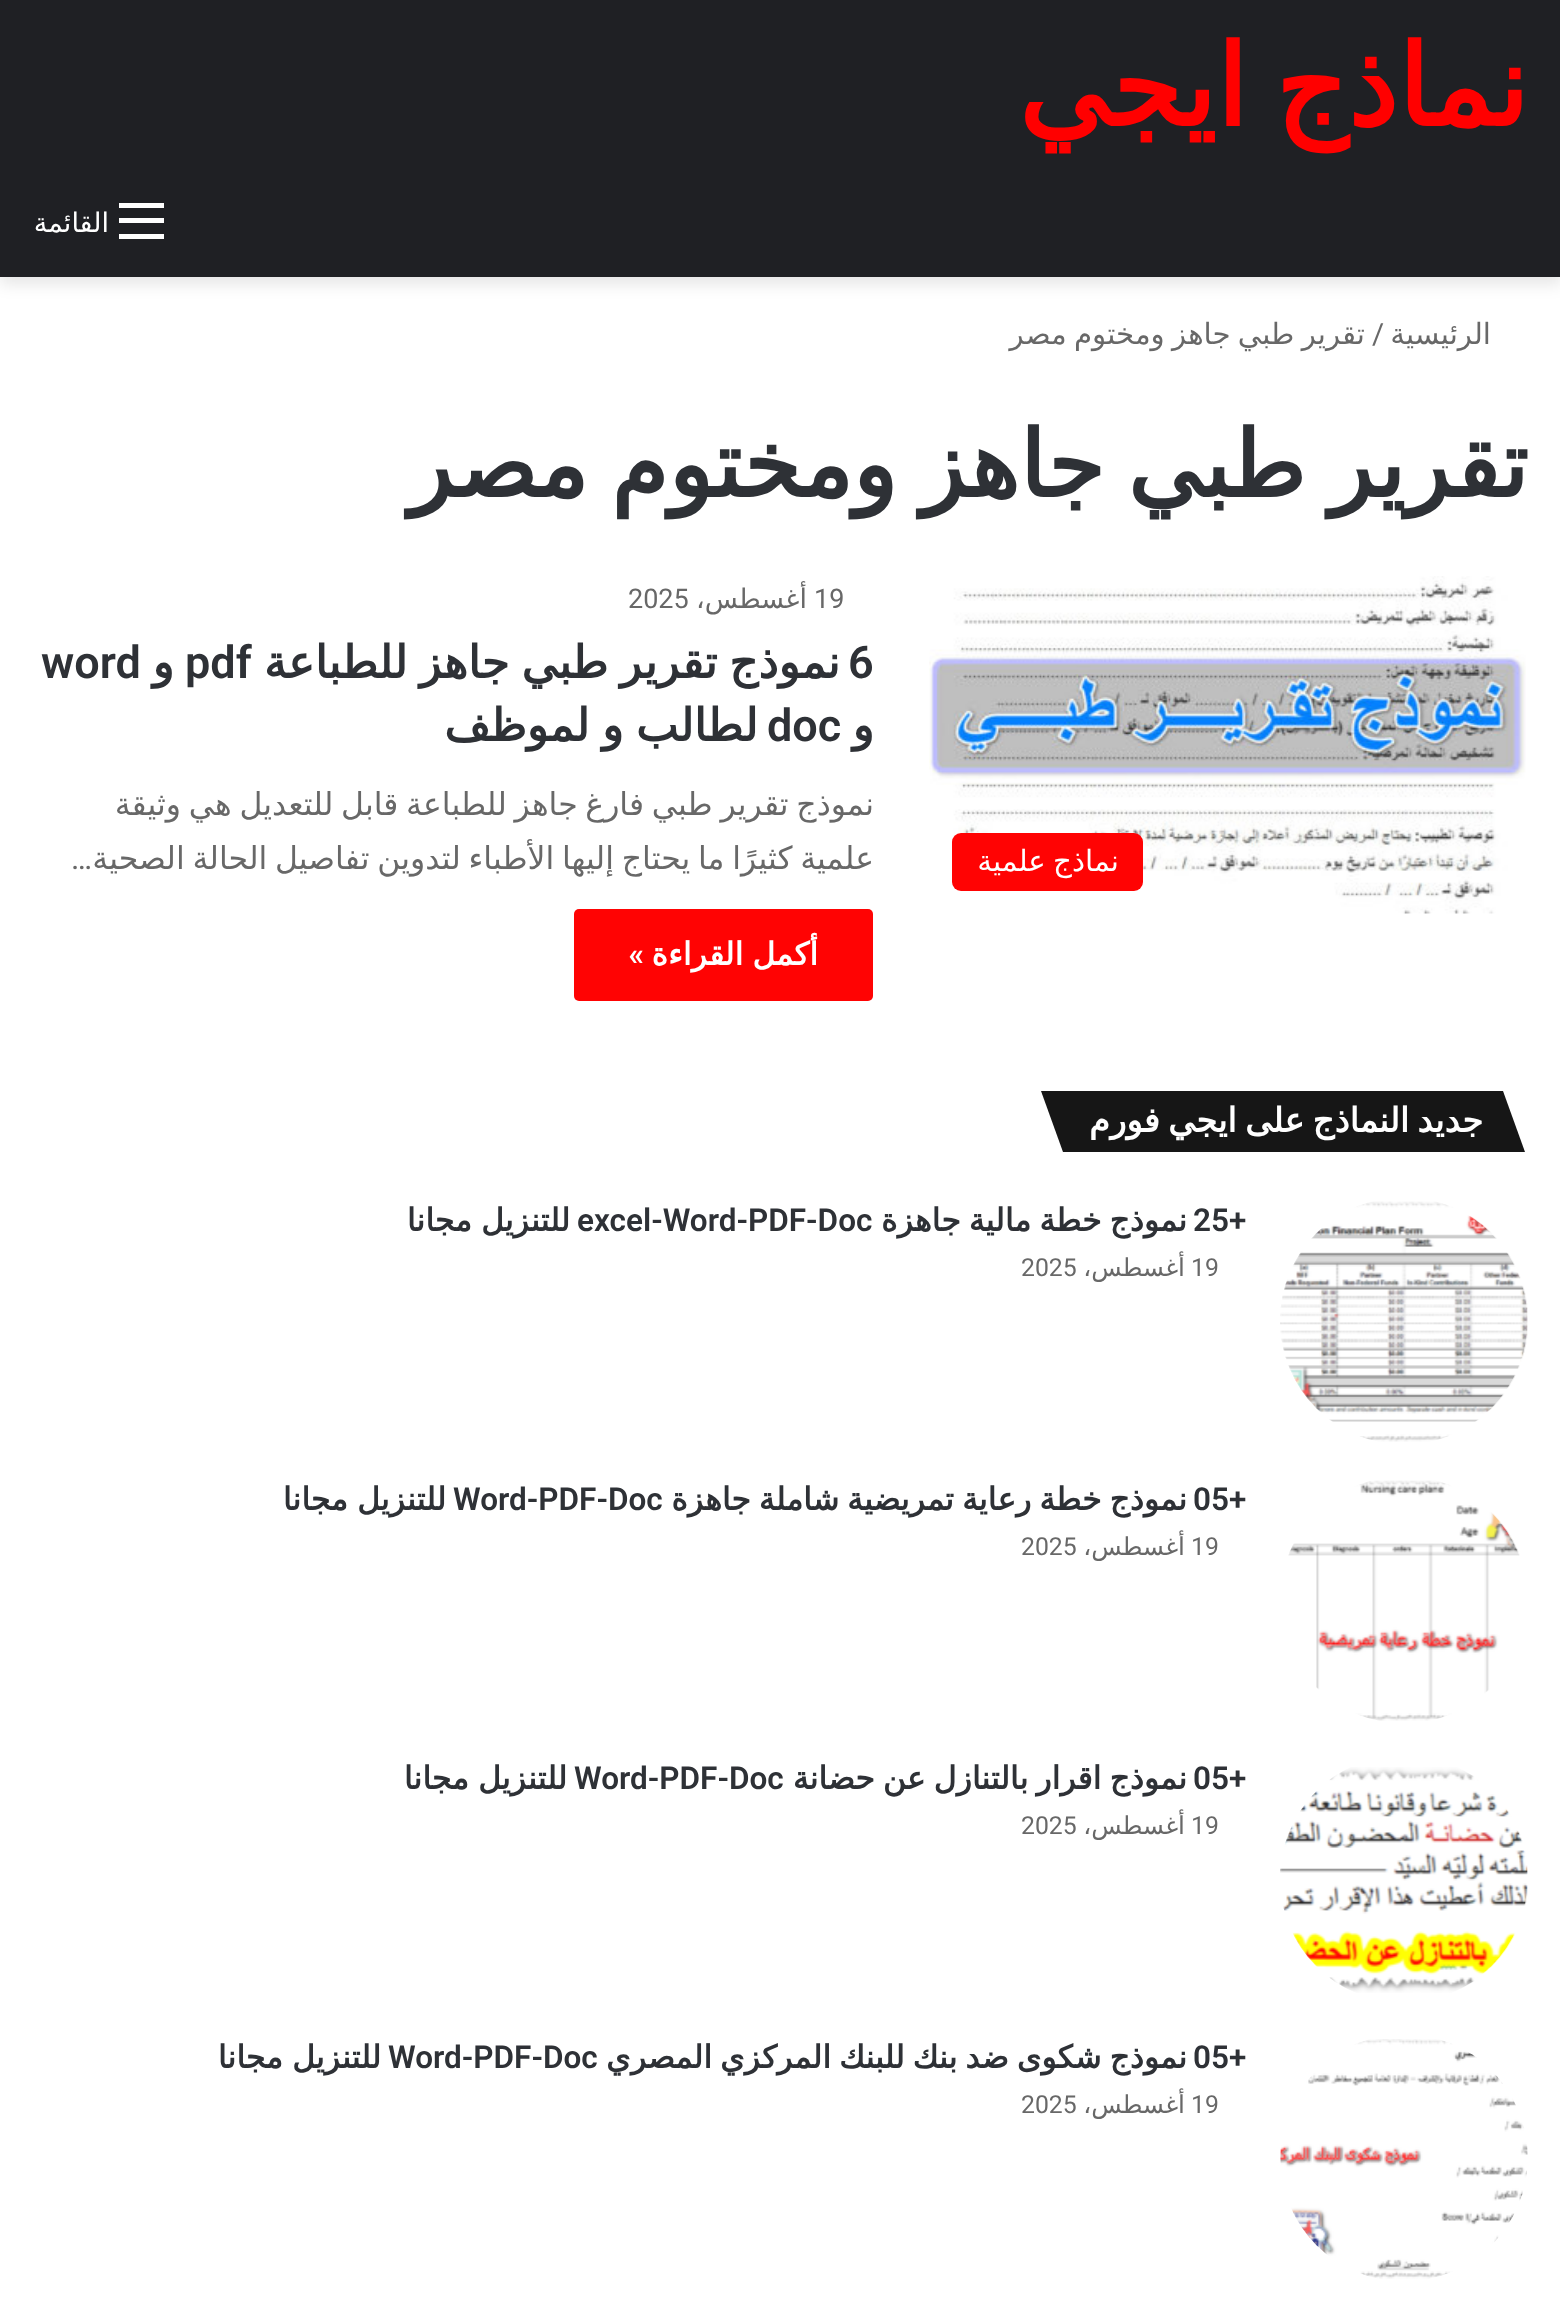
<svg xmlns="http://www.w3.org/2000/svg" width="1560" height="2308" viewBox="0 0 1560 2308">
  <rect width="100%" height="100%" fill="rgb(255,255,255)"/>
  <rect x="0" y="7" width="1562" height="277" fill="rgba(0,0,0,0.1)" filter="blur(8px)"/>
  <rect x="0" y="0" width="1560" height="277" fill="rgb(31,32,36)"/>
  <text x="1528" y="126" word-spacing="-8" font-family="DejaVu Sans" font-size="112.5" font-weight="bold" direction="rtl" fill="rgb(255,0,0)">نماذج ايجي</text>
  <rect x="119" y="218" width="45" height="5" fill="rgb(255,255,255)"/>
  <rect x="119" y="203" width="45" height="5" fill="rgb(255,255,255)"/>
  <rect x="119" y="234" width="45" height="5" fill="rgb(255,255,255)"/>
  <text x="109" y="232" font-family="DejaVu Sans" font-size="27" direction="rtl" fill="rgb(255,255,255)">القائمة</text>
  <text x="1491" y="344" font-family="DejaVu Sans" font-size="29.25" direction="rtl" fill="rgb(104,104,104)">الرئيسية</text>
  <text x="1372" y="344" font-family="Roboto" font-size="29.25" fill="rgb(104,104,104)">/</text>
  <text x="1365" y="344" word-spacing="-2" font-family="DejaVu Sans" font-size="29.25" direction="rtl" fill="rgb(104,104,104)">تقرير طبي جاهز ومختوم مصر</text>
  <text x="1528" y="497" word-spacing="-6.5" font-family="DejaVu Sans" font-size="92.25" font-weight="bold" direction="rtl" fill="rgb(46,49,54)">تقرير طبي جاهز ومختوم مصر</text>
  <image x="929" y="576" width="597" height="338" href="pic1.png"/>
  <rect x="952" y="833" width="191" height="58" rx="9" fill="rgb(255,3,3)"/>
  <text x="1119" y="871" word-spacing="-2" font-family="DejaVu Sans" font-size="29.25" direction="rtl" fill="rgb(255,255,255)">نماذج علمية</text>
  <text x="814" y="608" font-family="Roboto" font-size="27" fill="rgb(104,104,104)">19</text>
  <text x="807" y="608" font-family="DejaVu Sans" font-size="27" direction="rtl" fill="rgb(104,104,104)">أغسطس،</text>
  <text x="628" y="608" font-family="Roboto" font-size="27" fill="rgb(104,104,104)">2025</text>
  <text x="848" y="678" font-family="Roboto" font-size="45" font-weight="600" fill="rgb(46,49,54)">6</text>
  <text x="840" y="678" word-spacing="-2.5" font-family="DejaVu Sans" font-size="45" font-weight="bold" direction="rtl" fill="rgb(46,49,54)">نموذج تقرير طبي جاهز للطباعة</text>
  <text x="185" y="678" font-family="Roboto" font-size="45" font-weight="600" fill="rgb(46,49,54)">pdf</text>
  <text x="174" y="678" font-family="DejaVu Sans" font-size="45" font-weight="bold" direction="rtl" fill="rgb(46,49,54)">و</text>
  <text x="41" y="678" font-family="Roboto" font-size="45" font-weight="600" fill="rgb(46,49,54)">word</text>
  <text x="874" y="741" font-family="DejaVu Sans" font-size="45" font-weight="bold" direction="rtl" fill="rgb(46,49,54)">و</text>
  <text x="767" y="741" font-family="Roboto" font-size="45" font-weight="600" fill="rgb(46,49,54)">doc</text>
  <text x="758" y="741" word-spacing="-2" font-family="DejaVu Sans" font-size="45" font-weight="bold" direction="rtl" fill="rgb(46,49,54)">لطالب و لموظف</text>
  <g font-family="DejaVu Sans" font-size="31.5" direction="rtl" fill="rgb(104,104,104)">
    <text>
      <tspan x="874" y="815" word-spacing="-2.25">نموذج تقرير طبي فارغ جاهز للطباعة قابل للتعديل هي وثيقة</tspan>
      <tspan x="874" y="869" word-spacing="-2.25">علمية كثيرًا ما يحتاج إليها الأطباء لتدوين تفاصيل الحالة الصحية</tspan>
    </text>
  </g>
  <text x="92" y="869" font-family="Roboto" font-size="31.5" direction="rtl" fill="rgb(104,104,104)">…</text>
  <rect x="574" y="909" width="299" height="92" rx="5" fill="rgb(255,3,3)"/>
  <text x="818" y="965" word-spacing="-1" font-family="DejaVu Sans" font-size="31.5" font-weight="bold" direction="rtl" fill="rgb(255,255,255)">أكمل القراءة</text>
  <text x="644" y="965" font-family="Roboto" font-size="31.5" font-weight="600" direction="rtl" fill="rgb(255,255,255)">»</text>
  <path d="M1041 1091H1503L1525 1152H1063Z" fill="rgb(22,22,22)"/>
  <text x="1483" y="1132" word-spacing="-2.5" font-family="DejaVu Sans" font-size="33.75" font-weight="bold" direction="rtl" fill="rgb(255,255,255)">جديد النماذج على ايجي فورم</text>
  <image x="1280" y="1201" width="248" height="241" href="pic2.png"/>
  <text x="1193" y="1231" font-family="Roboto" font-size="31.5" font-weight="600" fill="rgb(46,49,54)">25+</text>
  <text x="1187" y="1231" word-spacing="-2" font-family="DejaVu Sans" font-size="31.5" font-weight="bold" direction="rtl" fill="rgb(46,49,54)">نموذج خطة مالية جاهزة</text>
  <text x="577" y="1231" font-family="Roboto" font-size="31.5" font-weight="600" fill="rgb(46,49,54)">excel-Word-PDF-Doc</text>
  <text x="570" y="1231" word-spacing="-1" font-family="DejaVu Sans" font-size="31.5" font-weight="bold" direction="rtl" fill="rgb(46,49,54)">للتنزيل مجانا</text>
  <text x="1191" y="1276" font-family="Roboto" font-size="24.75" fill="rgb(104,104,104)">19</text>
  <text x="1185" y="1276" font-family="DejaVu Sans" font-size="24.75" direction="rtl" fill="rgb(104,104,104)">أغسطس،</text>
  <text x="1021" y="1276" font-family="Roboto" font-size="24.75" fill="rgb(104,104,104)">2025</text>
  <image x="1288" y="1480" width="232" height="241" href="pic3.png"/>
  <text x="1193" y="1510" font-family="Roboto" font-size="31.5" font-weight="600" fill="rgb(46,49,54)">05+</text>
  <text x="1187" y="1510" word-spacing="-2" font-family="DejaVu Sans" font-size="31.5" font-weight="bold" direction="rtl" fill="rgb(46,49,54)">نموذج خطة رعاية تمريضية شاملة جاهزة</text>
  <text x="453" y="1510" font-family="Roboto" font-size="31.5" font-weight="600" fill="rgb(46,49,54)">Word-PDF-Doc</text>
  <text x="446" y="1510" word-spacing="-1" font-family="DejaVu Sans" font-size="31.5" font-weight="bold" direction="rtl" fill="rgb(46,49,54)">للتنزيل مجانا</text>
  <text x="1191" y="1555" font-family="Roboto" font-size="24.75" fill="rgb(104,104,104)">19</text>
  <text x="1185" y="1555" font-family="DejaVu Sans" font-size="24.75" direction="rtl" fill="rgb(104,104,104)">أغسطس،</text>
  <text x="1021" y="1555" font-family="Roboto" font-size="24.75" fill="rgb(104,104,104)">2025</text>
  <image x="1280" y="1767" width="248" height="226" href="pic4.png"/>
  <text x="1193" y="1789" font-family="Roboto" font-size="31.5" font-weight="600" fill="rgb(46,49,54)">05+</text>
  <text x="1187" y="1789" word-spacing="-2" font-family="DejaVu Sans" font-size="31.5" font-weight="bold" direction="rtl" fill="rgb(46,49,54)">نموذج اقرار بالتنازل عن حضانة</text>
  <text x="574" y="1789" font-family="Roboto" font-size="31.5" font-weight="600" fill="rgb(46,49,54)">Word-PDF-Doc</text>
  <text x="567" y="1789" word-spacing="-1" font-family="DejaVu Sans" font-size="31.5" font-weight="bold" direction="rtl" fill="rgb(46,49,54)">للتنزيل مجانا</text>
  <text x="1191" y="1834" font-family="Roboto" font-size="24.75" fill="rgb(104,104,104)">19</text>
  <text x="1185" y="1834" font-family="DejaVu Sans" font-size="24.75" direction="rtl" fill="rgb(104,104,104)">أغسطس،</text>
  <text x="1021" y="1834" font-family="Roboto" font-size="24.75" fill="rgb(104,104,104)">2025</text>
  <image x="1280" y="2039" width="248" height="240" href="pic5.png"/>
  <text x="1193" y="2068" font-family="Roboto" font-size="31.5" font-weight="600" fill="rgb(46,49,54)">05+</text>
  <text x="1187" y="2068" word-spacing="-2" font-family="DejaVu Sans" font-size="31.5" font-weight="bold" direction="rtl" fill="rgb(46,49,54)">نموذج شكوى ضد بنك للبنك المركزي المصري</text>
  <text x="388" y="2068" font-family="Roboto" font-size="31.5" font-weight="600" fill="rgb(46,49,54)">Word-PDF-Doc</text>
  <text x="381" y="2068" word-spacing="-1" font-family="DejaVu Sans" font-size="31.5" font-weight="bold" direction="rtl" fill="rgb(46,49,54)">للتنزيل مجانا</text>
  <text x="1191" y="2113" font-family="Roboto" font-size="24.75" fill="rgb(104,104,104)">19</text>
  <text x="1185" y="2113" font-family="DejaVu Sans" font-size="24.75" direction="rtl" fill="rgb(104,104,104)">أغسطس،</text>
  <text x="1021" y="2113" font-family="Roboto" font-size="24.75" fill="rgb(104,104,104)">2025</text>
</svg>
